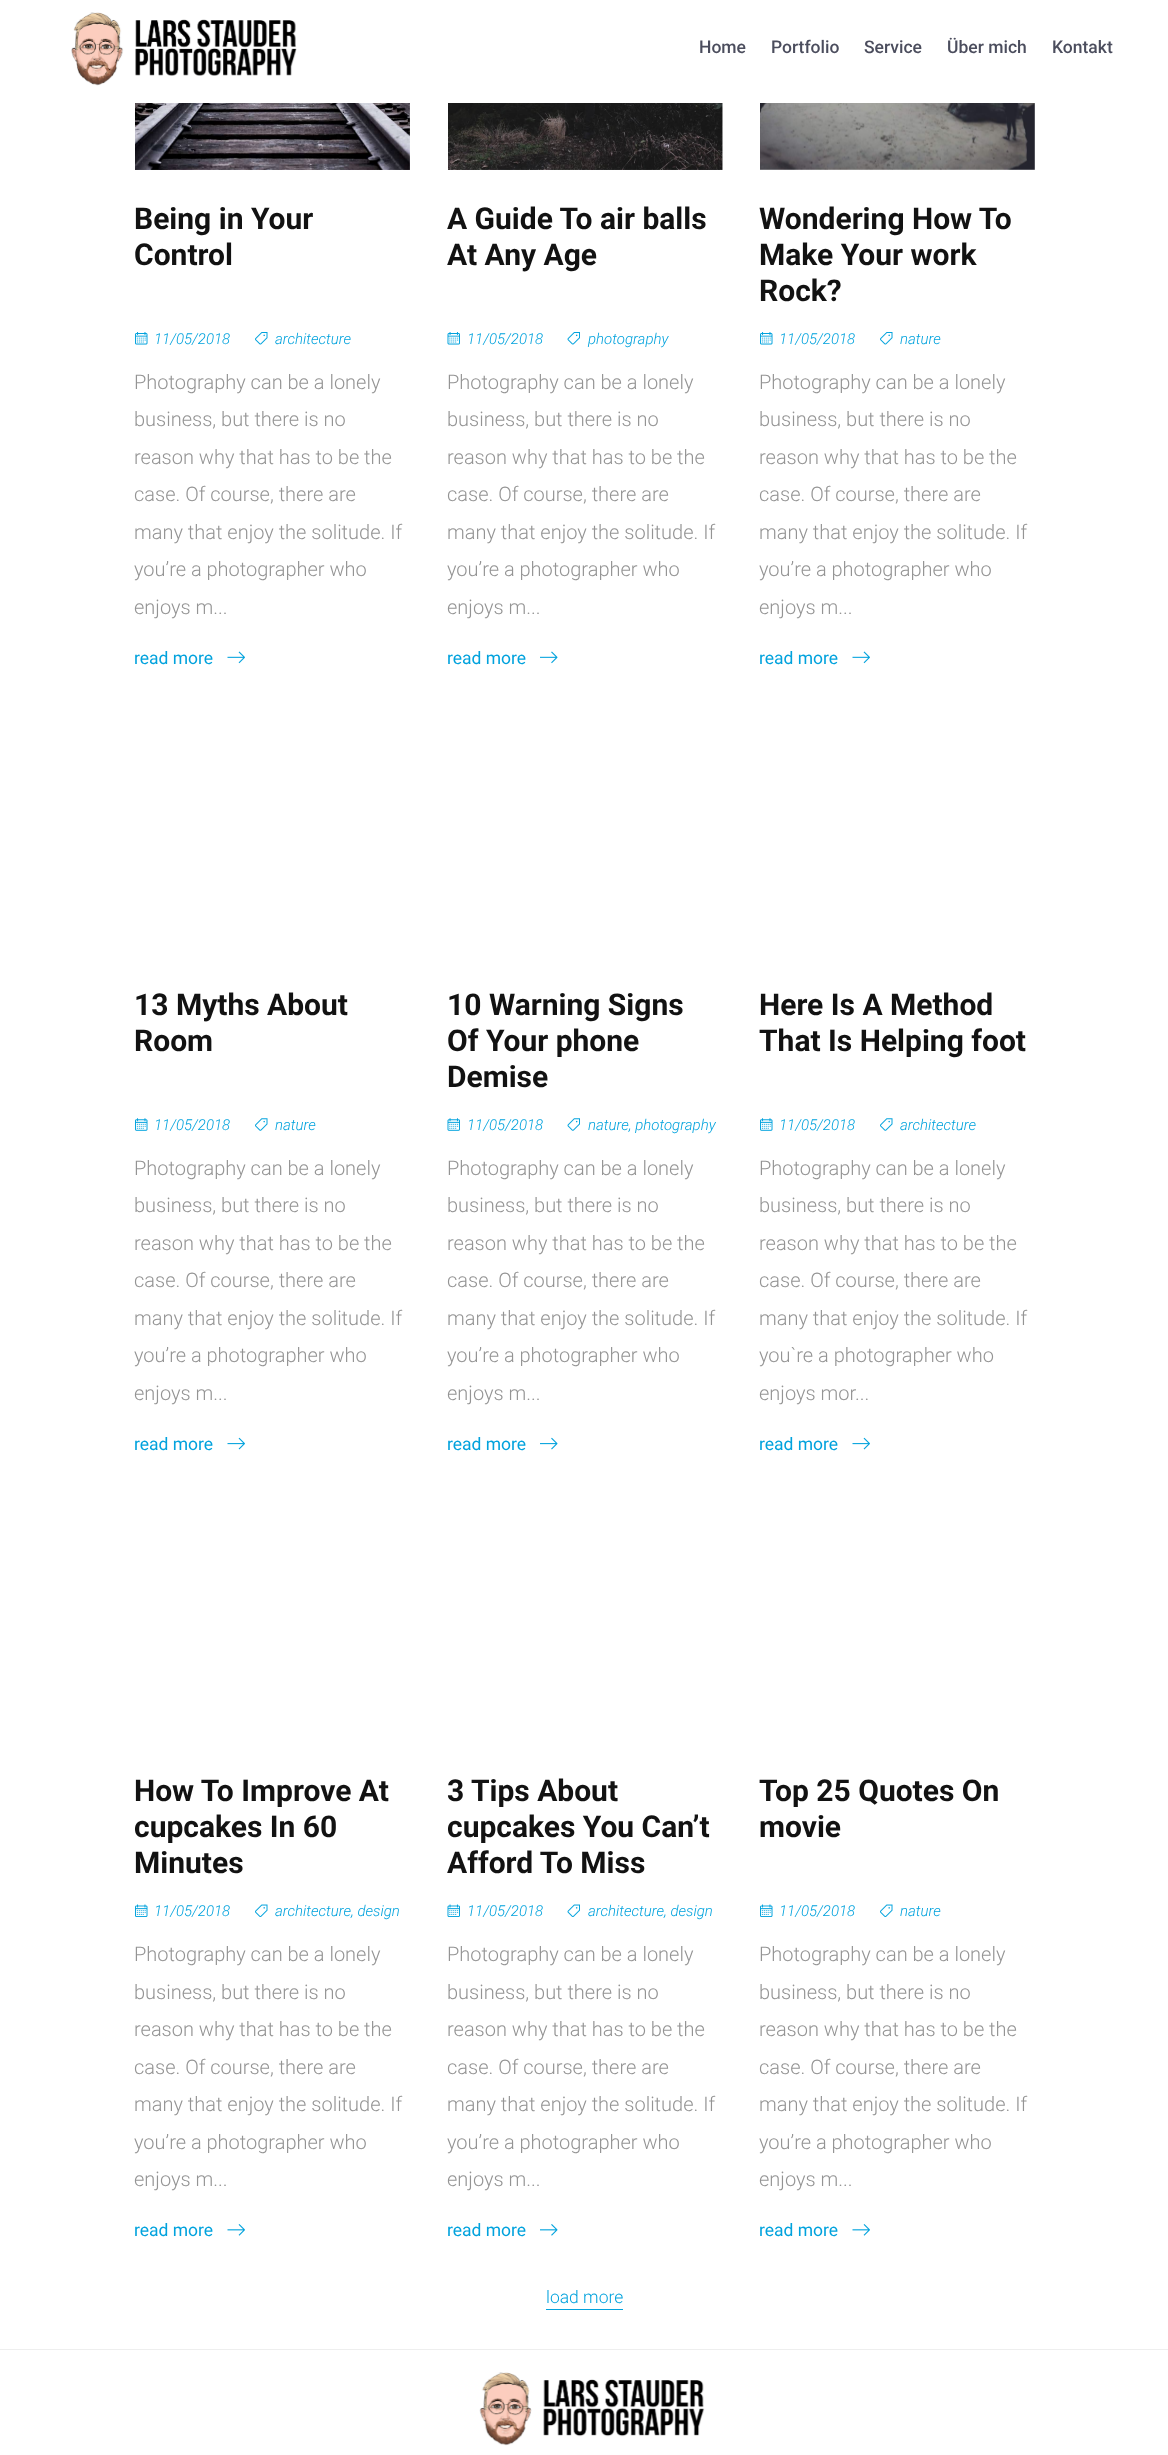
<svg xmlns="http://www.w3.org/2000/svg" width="1168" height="2455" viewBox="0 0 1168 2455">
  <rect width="100%" height="100%" fill="rgb(255,255,255)"/>
  <image x="71" y="12" width="226" height="74" href="pic1.png"/>
  <g font-family="Roboto" font-size="17.5" font-weight="500" fill="rgb(75,77,93)">
    <text x="699" y="53">Home</text>
    <text x="771" y="53">Portfolio</text>
    <text x="864" y="53">Service</text>
    <text x="947" y="53">Über mich</text>
    <text x="1052" y="53">Kontakt</text>
  </g>
  <image x="135" y="103" width="275" height="67" href="pic2.png"/>
  <g font-family="Roboto" font-size="30" font-weight="bold" fill="rgb(18,18,18)">
    <text>
      <tspan x="134" y="229">Being in Your</tspan>
      <tspan x="134" y="265">Control</tspan>
    </text>
  </g>
  <image x="135" y="332" width="13" height="13" href="pic3.png"/>
  <text x="154" y="344" font-family="Roboto" font-size="15" font-weight="300" font-style="italic" fill="rgb(1,162,221)">11/05/2018</text>
  <image x="255" y="332" width="13" height="13" href="pic4.png"/>
  <text x="275" y="344" font-family="Roboto" font-size="15" font-weight="300" font-style="italic" fill="rgb(1,162,221)">architecture</text>
  <g font-family="Roboto" font-size="20" font-weight="300" fill="rgb(148,148,148)">
    <text>
      <tspan x="134" y="389">Photography can be a lonely</tspan>
      <tspan x="134" y="426">business, but there is no</tspan>
      <tspan x="134" y="464">reason why that has to be the</tspan>
      <tspan x="134" y="501">case. Of course, there are</tspan>
      <tspan x="134" y="539">many that enjoy the solitude. If</tspan>
      <tspan x="134" y="576">you’re a photographer who</tspan>
      <tspan x="134" y="614">enjoys m...</tspan>
    </text>
  </g>
  <text x="134" y="664" font-family="Roboto" font-size="17.5" fill="rgb(1,162,221)">read more</text>
  <image x="227" y="651" width="18" height="13" href="pic5.png"/>
  <image x="448" y="103" width="275" height="67" href="pic6.png"/>
  <g font-family="Roboto" font-size="30" font-weight="bold" fill="rgb(18,18,18)">
    <text>
      <tspan x="447" y="229">A Guide To air balls</tspan>
      <tspan x="447" y="265">At Any Age</tspan>
    </text>
  </g>
  <image x="447" y="332" width="13" height="13" href="pic7.png"/>
  <text x="467" y="344" font-family="Roboto" font-size="15" font-weight="300" font-style="italic" fill="rgb(1,162,221)">11/05/2018</text>
  <image x="567" y="332" width="13" height="13" href="pic8.png"/>
  <text x="588" y="344" font-family="Roboto" font-size="15" font-weight="300" font-style="italic" fill="rgb(1,162,221)">photography</text>
  <g font-family="Roboto" font-size="20" font-weight="300" fill="rgb(148,148,148)">
    <text>
      <tspan x="447" y="389">Photography can be a lonely</tspan>
      <tspan x="447" y="426">business, but there is no</tspan>
      <tspan x="447" y="464">reason why that has to be the</tspan>
      <tspan x="447" y="501">case. Of course, there are</tspan>
      <tspan x="447" y="539">many that enjoy the solitude. If</tspan>
      <tspan x="447" y="576">you’re a photographer who</tspan>
      <tspan x="447" y="614">enjoys m...</tspan>
    </text>
  </g>
  <text x="447" y="664" font-family="Roboto" font-size="17.5" fill="rgb(1,162,221)">read more</text>
  <image x="540" y="651" width="18" height="13" href="pic9.png"/>
  <image x="760" y="103" width="275" height="67" href="pic10.png"/>
  <g font-family="Roboto" font-size="30" font-weight="bold" fill="rgb(18,18,18)">
    <text>
      <tspan x="759" y="229">Wondering How To</tspan>
      <tspan x="759" y="265">Make Your work</tspan>
      <tspan x="759" y="301">Rock?</tspan>
    </text>
  </g>
  <image x="760" y="332" width="13" height="13" href="pic3.png"/>
  <text x="779" y="344" font-family="Roboto" font-size="15" font-weight="300" font-style="italic" fill="rgb(1,162,221)">11/05/2018</text>
  <image x="880" y="332" width="13" height="13" href="pic4.png"/>
  <text x="900" y="344" font-family="Roboto" font-size="15" font-weight="300" font-style="italic" fill="rgb(1,162,221)">nature</text>
  <g font-family="Roboto" font-size="20" font-weight="300" fill="rgb(148,148,148)">
    <text>
      <tspan x="759" y="389">Photography can be a lonely</tspan>
      <tspan x="759" y="426">business, but there is no</tspan>
      <tspan x="759" y="464">reason why that has to be the</tspan>
      <tspan x="759" y="501">case. Of course, there are</tspan>
      <tspan x="759" y="539">many that enjoy the solitude. If</tspan>
      <tspan x="759" y="576">you’re a photographer who</tspan>
      <tspan x="759" y="614">enjoys m...</tspan>
    </text>
  </g>
  <text x="759" y="664" font-family="Roboto" font-size="17.5" fill="rgb(1,162,221)">read more</text>
  <image x="852" y="651" width="18" height="13" href="pic5.png"/>
  <g font-family="Roboto" font-size="30" font-weight="bold" fill="rgb(18,18,18)">
    <text>
      <tspan x="134" y="1015">13 Myths About</tspan>
      <tspan x="134" y="1051">Room</tspan>
    </text>
  </g>
  <image x="135" y="1118" width="13" height="13" href="pic11.png"/>
  <text x="154" y="1130" font-family="Roboto" font-size="15" font-weight="300" font-style="italic" fill="rgb(1,162,221)">11/05/2018</text>
  <image x="255" y="1118" width="13" height="13" href="pic12.png"/>
  <text x="275" y="1130" font-family="Roboto" font-size="15" font-weight="300" font-style="italic" fill="rgb(1,162,221)">nature</text>
  <g font-family="Roboto" font-size="20" font-weight="300" fill="rgb(148,148,148)">
    <text>
      <tspan x="134" y="1175">Photography can be a lonely</tspan>
      <tspan x="134" y="1212">business, but there is no</tspan>
      <tspan x="134" y="1250">reason why that has to be the</tspan>
      <tspan x="134" y="1287">case. Of course, there are</tspan>
      <tspan x="134" y="1325">many that enjoy the solitude. If</tspan>
      <tspan x="134" y="1362">you’re a photographer who</tspan>
      <tspan x="134" y="1400">enjoys m...</tspan>
    </text>
  </g>
  <text x="134" y="1450" font-family="Roboto" font-size="17.5" fill="rgb(1,162,221)">read more</text>
  <image x="227" y="1437" width="18" height="13" href="pic13.png"/>
  <g font-family="Roboto" font-size="30" font-weight="bold" fill="rgb(18,18,18)">
    <text>
      <tspan x="447" y="1015">10 Warning Signs</tspan>
      <tspan x="447" y="1051">Of Your phone</tspan>
      <tspan x="447" y="1087">Demise</tspan>
    </text>
  </g>
  <image x="447" y="1118" width="13" height="13" href="pic14.png"/>
  <text x="467" y="1130" font-family="Roboto" font-size="15" font-weight="300" font-style="italic" fill="rgb(1,162,221)">11/05/2018</text>
  <image x="567" y="1118" width="13" height="13" href="pic15.png"/>
  <text x="588" y="1130" font-family="Roboto" font-size="15" font-weight="300" font-style="italic" fill="rgb(1,162,221)">nature, photography</text>
  <g font-family="Roboto" font-size="20" font-weight="300" fill="rgb(148,148,148)">
    <text>
      <tspan x="447" y="1175">Photography can be a lonely</tspan>
      <tspan x="447" y="1212">business, but there is no</tspan>
      <tspan x="447" y="1250">reason why that has to be the</tspan>
      <tspan x="447" y="1287">case. Of course, there are</tspan>
      <tspan x="447" y="1325">many that enjoy the solitude. If</tspan>
      <tspan x="447" y="1362">you’re a photographer who</tspan>
      <tspan x="447" y="1400">enjoys m...</tspan>
    </text>
  </g>
  <text x="447" y="1450" font-family="Roboto" font-size="17.5" fill="rgb(1,162,221)">read more</text>
  <image x="540" y="1437" width="18" height="13" href="pic16.png"/>
  <g font-family="Roboto" font-size="30" font-weight="bold" fill="rgb(18,18,18)">
    <text>
      <tspan x="759" y="1015">Here Is A Method</tspan>
      <tspan x="759" y="1051">That Is Helping foot</tspan>
    </text>
  </g>
  <image x="760" y="1118" width="13" height="13" href="pic11.png"/>
  <text x="779" y="1130" font-family="Roboto" font-size="15" font-weight="300" font-style="italic" fill="rgb(1,162,221)">11/05/2018</text>
  <image x="880" y="1118" width="13" height="13" href="pic12.png"/>
  <text x="900" y="1130" font-family="Roboto" font-size="15" font-weight="300" font-style="italic" fill="rgb(1,162,221)">architecture</text>
  <g font-family="Roboto" font-size="20" font-weight="300" fill="rgb(148,148,148)">
    <text>
      <tspan x="759" y="1175">Photography can be a lonely</tspan>
      <tspan x="759" y="1212">business, but there is no</tspan>
      <tspan x="759" y="1250">reason why that has to be the</tspan>
      <tspan x="759" y="1287">case. Of course, there are</tspan>
      <tspan x="759" y="1325">many that enjoy the solitude. If</tspan>
      <tspan x="759" y="1362">you`re a photographer who</tspan>
      <tspan x="759" y="1400">enjoys mor...</tspan>
    </text>
  </g>
  <text x="759" y="1450" font-family="Roboto" font-size="17.5" fill="rgb(1,162,221)">read more</text>
  <image x="852" y="1437" width="18" height="13" href="pic13.png"/>
  <g font-family="Roboto" font-size="30" font-weight="bold" fill="rgb(18,18,18)">
    <text>
      <tspan x="134" y="1801">How To Improve At</tspan>
      <tspan x="134" y="1837">cupcakes In 60</tspan>
      <tspan x="134" y="1873">Minutes</tspan>
    </text>
  </g>
  <image x="135" y="1904" width="13" height="13" href="pic17.png"/>
  <text x="154" y="1916" font-family="Roboto" font-size="15" font-weight="300" font-style="italic" fill="rgb(1,162,221)">11/05/2018</text>
  <image x="255" y="1904" width="13" height="13" href="pic18.png"/>
  <text x="275" y="1916" font-family="Roboto" font-size="15" font-weight="300" font-style="italic" fill="rgb(1,162,221)">architecture, design</text>
  <g font-family="Roboto" font-size="20" font-weight="300" fill="rgb(148,148,148)">
    <text>
      <tspan x="134" y="1961">Photography can be a lonely</tspan>
      <tspan x="134" y="1999">business, but there is no</tspan>
      <tspan x="134" y="2036">reason why that has to be the</tspan>
      <tspan x="134" y="2074">case. Of course, there are</tspan>
      <tspan x="134" y="2111">many that enjoy the solitude. If</tspan>
      <tspan x="134" y="2149">you’re a photographer who</tspan>
      <tspan x="134" y="2186">enjoys m...</tspan>
    </text>
  </g>
  <text x="134" y="2236" font-family="Roboto" font-size="17.5" fill="rgb(1,162,221)">read more</text>
  <image x="227" y="2224" width="18" height="12" href="pic19.png"/>
  <g font-family="Roboto" font-size="30" font-weight="bold" fill="rgb(18,18,18)">
    <text>
      <tspan x="447" y="1801">3 Tips About</tspan>
      <tspan x="447" y="1837">cupcakes You Can’t</tspan>
      <tspan x="447" y="1873">Afford To Miss</tspan>
    </text>
  </g>
  <image x="447" y="1904" width="13" height="13" href="pic20.png"/>
  <text x="467" y="1916" font-family="Roboto" font-size="15" font-weight="300" font-style="italic" fill="rgb(1,162,221)">11/05/2018</text>
  <image x="567" y="1904" width="13" height="13" href="pic21.png"/>
  <text x="588" y="1916" font-family="Roboto" font-size="15" font-weight="300" font-style="italic" fill="rgb(1,162,221)">architecture, design</text>
  <g font-family="Roboto" font-size="20" font-weight="300" fill="rgb(148,148,148)">
    <text>
      <tspan x="447" y="1961">Photography can be a lonely</tspan>
      <tspan x="447" y="1999">business, but there is no</tspan>
      <tspan x="447" y="2036">reason why that has to be the</tspan>
      <tspan x="447" y="2074">case. Of course, there are</tspan>
      <tspan x="447" y="2111">many that enjoy the solitude. If</tspan>
      <tspan x="447" y="2149">you’re a photographer who</tspan>
      <tspan x="447" y="2186">enjoys m...</tspan>
    </text>
  </g>
  <text x="447" y="2236" font-family="Roboto" font-size="17.5" fill="rgb(1,162,221)">read more</text>
  <image x="540" y="2224" width="18" height="12" href="pic22.png"/>
  <g font-family="Roboto" font-size="30" font-weight="bold" fill="rgb(18,18,18)">
    <text>
      <tspan x="759" y="1801">Top 25 Quotes On</tspan>
      <tspan x="759" y="1837">movie</tspan>
    </text>
  </g>
  <image x="760" y="1904" width="13" height="13" href="pic17.png"/>
  <text x="779" y="1916" font-family="Roboto" font-size="15" font-weight="300" font-style="italic" fill="rgb(1,162,221)">11/05/2018</text>
  <image x="880" y="1904" width="13" height="13" href="pic18.png"/>
  <text x="900" y="1916" font-family="Roboto" font-size="15" font-weight="300" font-style="italic" fill="rgb(1,162,221)">nature</text>
  <g font-family="Roboto" font-size="20" font-weight="300" fill="rgb(148,148,148)">
    <text>
      <tspan x="759" y="1961">Photography can be a lonely</tspan>
      <tspan x="759" y="1999">business, but there is no</tspan>
      <tspan x="759" y="2036">reason why that has to be the</tspan>
      <tspan x="759" y="2074">case. Of course, there are</tspan>
      <tspan x="759" y="2111">many that enjoy the solitude. If</tspan>
      <tspan x="759" y="2149">you’re a photographer who</tspan>
      <tspan x="759" y="2186">enjoys m...</tspan>
    </text>
  </g>
  <text x="759" y="2236" font-family="Roboto" font-size="17.5" fill="rgb(1,162,221)">read more</text>
  <image x="852" y="2224" width="18" height="12" href="pic19.png"/>
  <text x="546" y="2303" font-family="Roboto" font-size="17.5" font-weight="300" fill="rgb(1,162,221)">load more</text>
  <rect x="546" y="2309" width="77" height="1" fill="rgb(1,162,221)"/>
  <rect x="0" y="2349" width="1168" height="1" fill="rgb(238,238,238)"/>
  <image x="479" y="2372" width="226" height="74" href="pic23.png"/>
</svg>
